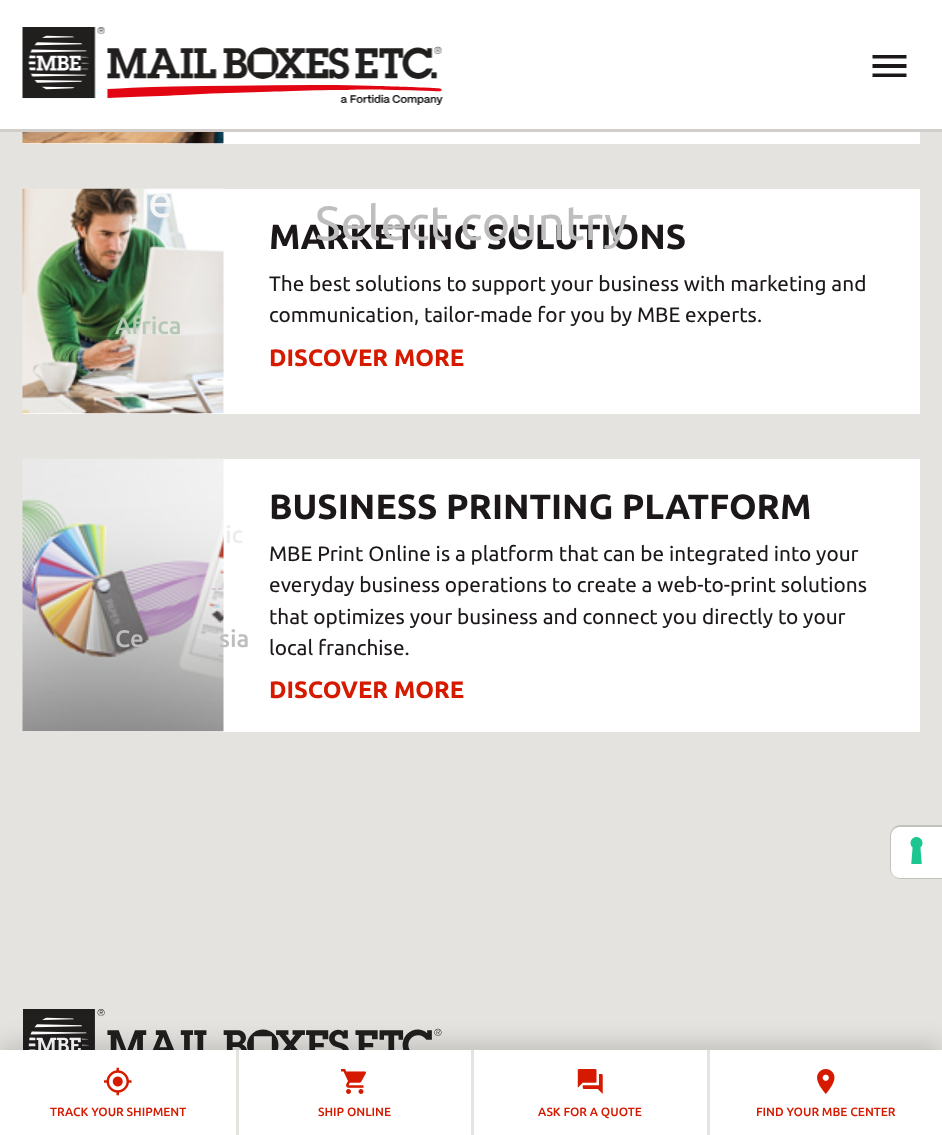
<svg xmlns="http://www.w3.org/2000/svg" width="942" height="1135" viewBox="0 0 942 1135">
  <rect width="100%" height="100%" fill="rgb(229,227,223)"/>
  <rect x="23" y="189" width="897" height="225" fill="rgb(255,255,255)"/>
  <image x="22" y="188" width="202" height="226" href="pic2.png"/>
  <text x="148" y="217" font-family="Ubuntu" font-size="45" letter-spacing="1" fill="rgb(246,246,246)">e</text>
  <text x="269" y="249" font-family="Ubuntu" font-size="35.1" font-weight="bold" fill="rgb(28,24,25)">MARKETING SOLUTIONS</text>
  <text x="315" y="240" font-family="Ubuntu" font-size="48" fill="rgb(191,190,190)">Select country</text>
  <text x="115" y="334" font-family="Ubuntu" font-size="24" font-weight="500" fill="rgb(181,200,180)">Africa</text>
  <text x="217" y="386" font-family="Ubuntu" font-size="21" font-weight="300" fill="rgb(224,222,220)">-</text>
  <rect x="23" y="459" width="897" height="273" fill="rgb(255,255,255)"/>
  <text x="225" y="543" font-family="Ubuntu" font-size="24" font-weight="500" fill="rgb(237,237,237)">ic</text>
  <image x="22" y="458" width="202" height="274" href="pic3.png"/>
  <text x="211" y="595" font-family="Ubuntu" font-size="21" font-weight="300" fill="rgb(200,182,204)">--</text>
  <g font-family="Ubuntu" font-size="24" font-weight="500" fill="rgb(191,190,190)">
    <text x="115" y="647">Ce</text>
    <text x="219" y="647">sia</text>
  </g>
  <rect x="23" y="132" width="897" height="12" fill="rgb(255,255,255)"/>
  <image x="22" y="132" width="202" height="12" href="pic1.png"/>
  <g font-family="Ubuntu" font-size="20.8" fill="rgb(28,24,25)">
    <text>
      <tspan x="269" y="291">The best solutions to support your business with marketing and</tspan>
      <tspan x="269" y="322">communication, tailor-made for you by MBE experts.</tspan>
    </text>
  </g>
  <text x="269" y="366" font-family="Ubuntu" font-size="23.75" font-weight="bold" fill="rgb(213,26,0)">DISCOVER MORE</text>
  <text x="269" y="519" font-family="Ubuntu" font-size="35.1" font-weight="bold" fill="rgb(28,24,25)">BUSINESS PRINTING PLATFORM</text>
  <g font-family="Ubuntu" font-size="20.8" fill="rgb(28,24,25)">
    <text>
      <tspan x="269" y="561">MBE Print Online is a platform that can be integrated into your</tspan>
      <tspan x="269" y="592">everyday business operations to create a web-to-print solutions</tspan>
      <tspan x="269" y="624">that optimizes your business and connect you directly to your</tspan>
      <tspan x="269" y="655">local franchise.</tspan>
    </text>
  </g>
  <text x="269" y="698" font-family="Ubuntu" font-size="23.75" font-weight="bold" fill="rgb(213,26,0)">DISCOVER MORE</text>
  <path d="M901 826H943V878H901C895.5 878 891 873.5 891 868V836C891 830.5 895.5 826 901 826Z" fill="none" stroke="rgb(195,193,190)" stroke-width="2"/>
  <path d="M900 827H942V878H900C895 878 891 874 891 869V836C891 831 895 827 900 827Z" fill="rgb(255,255,255)"/>
  <image x="910" y="837" width="13" height="27" href="pic4.png"/>
  <image x="23" y="1009" width="419" height="41" href="pic5.png"/>
  <rect x="0" y="0" width="942" height="129" fill="rgb(255,255,255)"/>
  <rect x="0" y="129" width="942" height="3" fill="rgb(209,206,203)"/>
  <image x="22" y="27" width="421" height="78" href="pic6.png"/>
  <path d="M872.5 55H906.5V58.5H872.5ZM872.5 68V64H906.5V68ZM872.5 77V73.5H906.5V77Z" fill="rgb(28,24,25)"/>
  <rect x="0" y="1043" width="942" height="85" fill="rgba(0,0,0,0.15)" filter="blur(11px)"/>
  <rect x="0" y="1050" width="942" height="85" fill="rgb(255,255,255)"/>
  <image x="104" y="1067" width="28" height="29" href="pic7.png"/>
  <text x="50" y="1116" font-family="Ubuntu" font-size="12" font-weight="500" fill="rgb(213,26,0)">TRACK YOUR SHIPMENT</text>
  <rect x="236" y="1050" width="3" height="85" fill="rgb(229,227,223)"/>
  <image x="341" y="1069" width="25" height="25" href="pic8.png"/>
  <text x="318" y="1116" font-family="Ubuntu" font-size="12" font-weight="500" fill="rgb(213,26,0)">SHIP ONLINE</text>
  <rect x="471" y="1050" width="3" height="85" fill="rgb(229,227,223)"/>
  <image x="577" y="1069" width="26" height="25" href="pic9.png"/>
  <text x="538" y="1116" font-family="Ubuntu" font-size="12" font-weight="500" fill="rgb(213,26,0)">ASK FOR A QUOTE</text>
  <rect x="707" y="1050" width="3" height="85" fill="rgb(229,227,223)"/>
  <image x="817" y="1069" width="18" height="25" href="pic10.png"/>
  <text x="756" y="1116" font-family="Ubuntu" font-size="12" font-weight="500" fill="rgb(213,26,0)">FIND YOUR MBE CENTER</text>
</svg>
